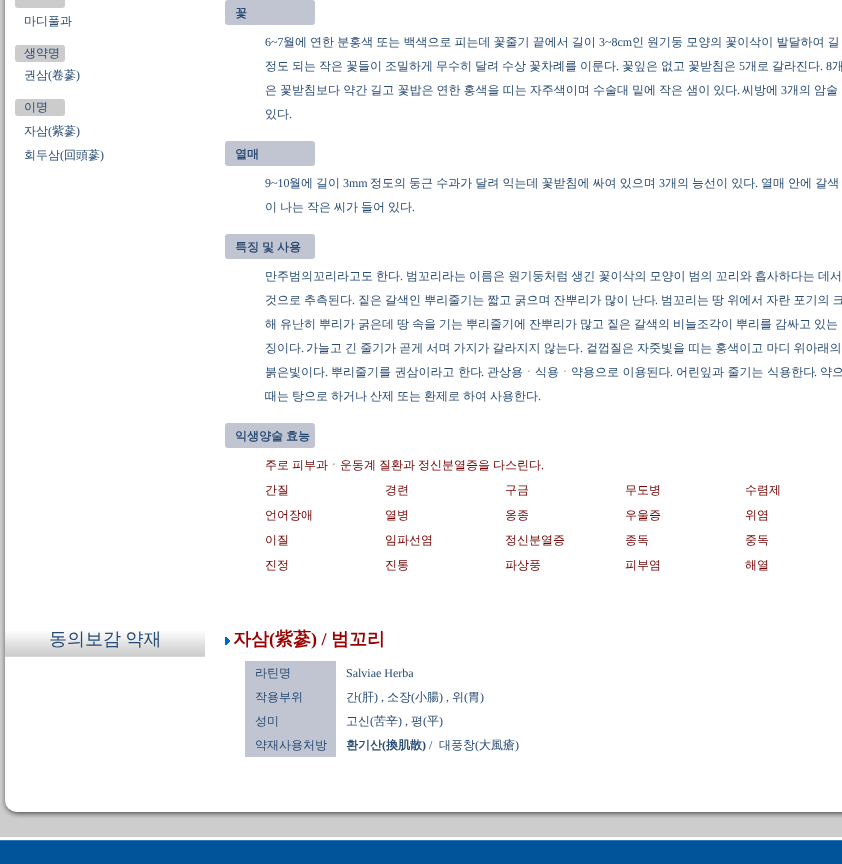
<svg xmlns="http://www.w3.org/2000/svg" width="842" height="864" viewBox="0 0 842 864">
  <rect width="100%" height="100%" fill="rgb(255,255,255)"/>
  <rect x="0" y="0" width="1" height="837" fill="rgb(205,205,205)"/>
  <image x="1" y="0" width="841" height="800" href="pic1.png"/>
  <image x="1" y="800" width="841" height="37" href="pic2.png"/>
  <rect x="15" y="-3" width="50" height="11" rx="3" fill="rgb(204,204,204)"/>
  <text x="24" y="25" font-family="WenQuanYi Zen Hei" font-size="12" font-weight="500" fill="rgb(39,74,114)">마디풀과</text>
  <rect x="15" y="45" width="50" height="17" rx="3" fill="rgb(204,204,204)"/>
  <g font-family="WenQuanYi Zen Hei" font-size="12" font-weight="500" fill="rgb(39,74,114)">
    <text>
      <tspan x="24" y="57">생약명</tspan>
      <tspan x="24" y="79">권삼</tspan>
    </text>
  </g>
  <text x="48" y="79" font-family="Liberation Serif" font-size="12" fill="rgb(39,74,114)">(</text>
  <text x="52" y="79" font-family="WenQuanYi Zen Hei" font-size="12" font-weight="500" fill="rgb(39,74,114)">卷蔘</text>
  <text x="76" y="79" font-family="Liberation Serif" font-size="12" fill="rgb(39,74,114)">)</text>
  <rect x="15" y="99" width="50" height="17" rx="3" fill="rgb(204,204,204)"/>
  <g font-family="WenQuanYi Zen Hei" font-size="12" font-weight="500" fill="rgb(39,74,114)">
    <text x="24" y="111">이명</text>
    <text x="24" y="135">자삼</text>
  </g>
  <text x="48" y="135" font-family="Liberation Serif" font-size="12" fill="rgb(39,74,114)">(</text>
  <text x="52" y="135" font-family="WenQuanYi Zen Hei" font-size="12" font-weight="500" fill="rgb(39,74,114)">紫蔘</text>
  <text x="76" y="135" font-family="Liberation Serif" font-size="12" fill="rgb(39,74,114)">)</text>
  <text x="24" y="159" font-family="WenQuanYi Zen Hei" font-size="12" font-weight="500" fill="rgb(39,74,114)">회두삼</text>
  <text x="60" y="159" font-family="Liberation Serif" font-size="12" fill="rgb(39,74,114)">(</text>
  <text x="64" y="159" font-family="WenQuanYi Zen Hei" font-size="12" font-weight="500" fill="rgb(39,74,114)">回頭蔘</text>
  <text x="100" y="159" font-family="Liberation Serif" font-size="12" fill="rgb(39,74,114)">)</text>
  <rect x="225" y="0" width="90" height="25" rx="3" fill="rgb(193,197,210)"/>
  <text x="235" y="17" font-family="WenQuanYi Zen Hei" font-size="12" font-weight="bold" fill="rgb(39,74,114)">꽃</text>
  <text x="265" y="46" font-family="Liberation Serif" font-size="12" fill="rgb(39,74,114)">6~7</text>
  <text x="283" y="46" word-spacing="-0.5" font-family="WenQuanYi Zen Hei" font-size="12" font-weight="500" fill="rgb(39,74,114)">월에 연한 분홍색 또는 백색으로 피는데 꽃줄기 끝에서 길이</text>
  <text x="599" y="46" font-family="Liberation Serif" font-size="12" fill="rgb(39,74,114)">3~8cm</text>
  <g font-family="WenQuanYi Zen Hei" font-size="12" font-weight="500" fill="rgb(39,74,114)">
    <text x="632" y="46" word-spacing="-0.5">인 원기둥 모양의 꽃이삭이 발달하여 길</text>
    <text x="265" y="70">정도</text>
    <text x="292" y="70">되는</text>
    <text x="319" y="70">작은</text>
    <text x="346" y="70">꽃들이</text>
    <text x="385" y="70">조밀하게</text>
    <text x="436" y="70">무수히</text>
    <text x="475" y="70">달려</text>
    <text x="502" y="70">수상</text>
    <text x="529" y="70">꽃차례를</text>
    <text x="580" y="70">이룬다</text>
  </g>
  <text x="616" y="70" font-family="Liberation Serif" font-size="12" fill="rgb(39,74,114)">.</text>
  <g font-family="WenQuanYi Zen Hei" font-size="12" font-weight="500" fill="rgb(39,74,114)">
    <text x="622" y="70">꽃잎은</text>
    <text x="661" y="70">없고</text>
    <text x="688" y="70">꽃받침은</text>
  </g>
  <text x="739" y="70" font-family="Liberation Serif" font-size="12" fill="rgb(39,74,114)">5</text>
  <g font-family="WenQuanYi Zen Hei" font-size="12" font-weight="500" fill="rgb(39,74,114)">
    <text x="745" y="70">개로</text>
    <text x="772" y="70">갈라진다</text>
  </g>
  <text x="820" y="70" font-family="Liberation Serif" font-size="12" fill="rgb(39,74,114)">. 8</text>
  <g font-family="WenQuanYi Zen Hei" font-size="12" font-weight="500" fill="rgb(39,74,114)">
    <text x="832" y="70">개</text>
    <text x="265" y="94" word-spacing="-0.5">은 꽃받침보다 약간 길고 꽃밥은 연한 홍색을 띠는 자주색이며 수술대 밑에 작은 샘이 있다</text>
  </g>
  <text x="737" y="94" font-family="Liberation Serif" font-size="12" fill="rgb(39,74,114)">.</text>
  <text x="742" y="94" font-family="WenQuanYi Zen Hei" font-size="12" font-weight="500" fill="rgb(39,74,114)">씨방에</text>
  <text x="781" y="94" font-family="Liberation Serif" font-size="12" fill="rgb(39,74,114)">3</text>
  <g font-family="WenQuanYi Zen Hei" font-size="12" font-weight="500" fill="rgb(39,74,114)">
    <text x="787" y="94" word-spacing="-0.5">개의 암술</text>
    <text x="265" y="118">있다</text>
  </g>
  <text x="289" y="118" font-family="Liberation Serif" font-size="12" fill="rgb(39,74,114)">.</text>
  <rect x="225" y="141" width="90" height="25" rx="3" fill="rgb(193,197,210)"/>
  <text x="235" y="158" font-family="WenQuanYi Zen Hei" font-size="12" font-weight="bold" fill="rgb(39,74,114)">열매</text>
  <text x="265" y="187" font-family="Liberation Serif" font-size="12" fill="rgb(39,74,114)">9~10</text>
  <text x="289" y="187" word-spacing="-0.5" font-family="WenQuanYi Zen Hei" font-size="12" font-weight="500" fill="rgb(39,74,114)">월에 길이</text>
  <text x="343" y="187" font-family="Liberation Serif" font-size="12" fill="rgb(39,74,114)">3mm</text>
  <text x="370" y="187" word-spacing="-0.5" font-family="WenQuanYi Zen Hei" font-size="12" font-weight="500" fill="rgb(39,74,114)">정도의 둥근 수과가 달려 익는데 꽃받침에 싸여 있으며</text>
  <text x="659" y="187" font-family="Liberation Serif" font-size="12" fill="rgb(39,74,114)">3</text>
  <text x="665" y="187" word-spacing="-0.5" font-family="WenQuanYi Zen Hei" font-size="12" font-weight="500" fill="rgb(39,74,114)">개의 능선이 있다</text>
  <text x="755" y="187" font-family="Liberation Serif" font-size="12" fill="rgb(39,74,114)">.</text>
  <g font-family="WenQuanYi Zen Hei" font-size="12" font-weight="500" fill="rgb(39,74,114)">
    <text x="761" y="187" word-spacing="-0.5">열매 안에 갈색</text>
    <text x="265" y="211" word-spacing="-0.6">이 나는 작은 씨가 들어 있다</text>
  </g>
  <text x="412" y="211" font-family="Liberation Serif" font-size="12" fill="rgb(39,74,114)">.</text>
  <rect x="225" y="234" width="90" height="25" rx="3" fill="rgb(193,197,210)"/>
  <text x="235" y="251" word-spacing="-0.6" font-family="WenQuanYi Zen Hei" font-size="12" font-weight="bold" fill="rgb(39,74,114)">특징 및 사용</text>
  <text x="265" y="280" word-spacing="-0.5" font-family="WenQuanYi Zen Hei" font-size="12" font-weight="500" fill="rgb(39,74,114)">만주범의꼬리라고도 한다</text>
  <text x="400" y="280" font-family="Liberation Serif" font-size="12" fill="rgb(39,74,114)">.</text>
  <g font-family="WenQuanYi Zen Hei" font-size="12" font-weight="500" fill="rgb(39,74,114)">
    <text x="406" y="280" word-spacing="-0.5">범꼬리라는 이름은 원기둥처럼 생긴 꽃이삭의 모양이 범의 꼬리와 흡사하다는 데서</text>
    <text x="265" y="304" word-spacing="-0.5">것으로 추측된다</text>
  </g>
  <text x="352" y="304" font-family="Liberation Serif" font-size="12" fill="rgb(39,74,114)">.</text>
  <text x="358" y="304" word-spacing="-0.5" font-family="WenQuanYi Zen Hei" font-size="12" font-weight="500" fill="rgb(39,74,114)">짙은 갈색인 뿌리줄기는 짧고 굵으며 잔뿌리가 많이 난다</text>
  <text x="655" y="304" font-family="Liberation Serif" font-size="12" fill="rgb(39,74,114)">.</text>
  <g font-family="WenQuanYi Zen Hei" font-size="12" font-weight="500" fill="rgb(39,74,114)">
    <text x="661" y="304" word-spacing="-0.5">범꼬리는 땅 위에서 자란 포기의 크</text>
    <text x="265" y="328" word-spacing="-0.6">해 유난히 뿌리가 굵은데 땅 속을 기는 뿌리줄기에 잔뿌리가 많고 짙은 갈색의 비늘조각이 뿌리를 감싸고 있는</text>
    <text x="265" y="352">징이다</text>
  </g>
  <text x="301" y="352" font-family="Liberation Serif" font-size="12" fill="rgb(39,74,114)">.</text>
  <text x="306" y="352" word-spacing="-0.5" font-family="WenQuanYi Zen Hei" font-size="12" font-weight="500" fill="rgb(39,74,114)">가늘고 긴 줄기가 곧게 서며 가지가 갈라지지 않는다</text>
  <text x="580" y="352" font-family="Liberation Serif" font-size="12" fill="rgb(39,74,114)">.</text>
  <g font-family="WenQuanYi Zen Hei" font-size="12" font-weight="500" fill="rgb(39,74,114)">
    <text x="586" y="352" word-spacing="-0.5">겉껍질은 자줏빛을 띠는 홍색이고 마디 위아래의</text>
    <text x="265" y="376">붉은빛이다</text>
  </g>
  <text x="325" y="376" font-family="Liberation Serif" font-size="12" fill="rgb(39,74,114)">.</text>
  <text x="331" y="376" font-family="WenQuanYi Zen Hei" font-size="12" font-weight="500" fill="rgb(39,74,114)">뿌리줄기를 권삼이라고 한다</text>
  <text x="481" y="376" font-family="Liberation Serif" font-size="12" fill="rgb(39,74,114)">.</text>
  <text x="487" y="376" font-family="WenQuanYi Zen Hei" font-size="12" font-weight="500" fill="rgb(39,74,114)">관상용ㆍ식용ㆍ약용으로 이용된다</text>
  <text x="670" y="376" font-family="Liberation Serif" font-size="12" fill="rgb(39,74,114)">.</text>
  <text x="676" y="376" font-family="WenQuanYi Zen Hei" font-size="12" font-weight="500" fill="rgb(39,74,114)">어린잎과 줄기는 식용한다</text>
  <text x="814" y="376" font-family="Liberation Serif" font-size="12" fill="rgb(39,74,114)">.</text>
  <g font-family="WenQuanYi Zen Hei" font-size="12" font-weight="500" fill="rgb(39,74,114)">
    <text x="820" y="376">약으</text>
    <text x="265" y="400" word-spacing="-0.6">때는 탕으로 하거나 산제 또는 환제로 하여 사용한다</text>
  </g>
  <text x="538" y="400" font-family="Liberation Serif" font-size="12" fill="rgb(39,74,114)">.</text>
  <rect x="225" y="423" width="90" height="25" rx="3" fill="rgb(193,197,210)"/>
  <text x="235" y="440" word-spacing="-0.6" font-family="WenQuanYi Zen Hei" font-size="12" font-weight="bold" fill="rgb(39,74,114)">익생양술 효능</text>
  <text x="265" y="469" word-spacing="-0.6" font-family="WenQuanYi Zen Hei" font-size="12" font-weight="500" fill="rgb(114,0,0)">주로 피부과ㆍ운동계 질환과 정신분열증을 다스린다</text>
  <text x="541" y="469" font-family="Liberation Serif" font-size="12" fill="rgb(114,0,0)">.</text>
  <g font-family="WenQuanYi Zen Hei" font-size="12" font-weight="500" fill="rgb(114,0,0)">
    <text x="265" y="494">간질</text>
    <text x="385" y="494">경련</text>
    <text x="505" y="494">구금</text>
    <text x="625" y="494">무도병</text>
    <text x="745" y="494">수렴제</text>
    <text x="265" y="519">언어장애</text>
    <text x="385" y="519">열병</text>
    <text x="505" y="519">옹종</text>
    <text x="625" y="519">우울증</text>
    <text x="745" y="519">위염</text>
    <text x="265" y="544">이질</text>
    <text x="385" y="544">임파선염</text>
    <text x="505" y="544">정신분열증</text>
    <text x="625" y="544">종독</text>
    <text x="745" y="544">중독</text>
    <text x="265" y="569">진정</text>
    <text x="385" y="569">진통</text>
    <text x="505" y="569">파상풍</text>
    <text x="625" y="569">피부염</text>
    <text x="745" y="569">해열</text>
  </g>
  <image x="5" y="631" width="200" height="26" href="pic3.png"/>
  <text x="49" y="645" word-spacing="-1" font-family="WenQuanYi Zen Hei" font-size="18" font-weight="500" fill="rgb(39,74,114)">동의보감 약재</text>
  <image x="225" y="637" width="5" height="8" href="pic4.png"/>
  <text x="233" y="645" font-family="WenQuanYi Zen Hei" font-size="18" font-weight="bold" fill="rgb(153,0,0)">자삼</text>
  <text x="269" y="645" font-family="Liberation Serif" font-size="18" font-weight="bold" fill="rgb(153,0,0)">(</text>
  <text x="275" y="645" font-family="WenQuanYi Zen Hei" font-size="18" font-weight="bold" fill="rgb(153,0,0)">紫蔘</text>
  <text x="311" y="645" font-family="Liberation Serif" font-size="18" font-weight="bold" fill="rgb(153,0,0)">) /</text>
  <text x="331" y="645" font-family="WenQuanYi Zen Hei" font-size="18" font-weight="bold" fill="rgb(153,0,0)">범꼬리</text>
  <rect x="245" y="661" width="91" height="96" fill="rgb(193,197,210)"/>
  <text x="255" y="677" font-family="WenQuanYi Zen Hei" font-size="12" font-weight="500" fill="rgb(39,74,114)">라틴명</text>
  <text x="346" y="677" font-family="Liberation Serif" font-size="12" fill="rgb(39,74,114)">Salviae Herba</text>
  <g font-family="WenQuanYi Zen Hei" font-size="12" font-weight="500" fill="rgb(39,74,114)">
    <text x="255" y="701">작용부위</text>
    <text x="346" y="701">간</text>
  </g>
  <text x="358" y="701" font-family="Liberation Serif" font-size="12" fill="rgb(39,74,114)">(</text>
  <text x="362" y="701" font-family="WenQuanYi Zen Hei" font-size="12" font-weight="500" fill="rgb(39,74,114)">肝</text>
  <text x="374" y="701" font-family="Liberation Serif" font-size="12" fill="rgb(39,74,114)">) ,</text>
  <text x="387" y="701" font-family="WenQuanYi Zen Hei" font-size="12" font-weight="500" fill="rgb(39,74,114)">소장</text>
  <text x="411" y="701" font-family="Liberation Serif" font-size="12" fill="rgb(39,74,114)">(</text>
  <text x="415" y="701" font-family="WenQuanYi Zen Hei" font-size="12" font-weight="500" fill="rgb(39,74,114)">小腸</text>
  <text x="439" y="701" font-family="Liberation Serif" font-size="12" fill="rgb(39,74,114)">) ,</text>
  <text x="452" y="701" font-family="WenQuanYi Zen Hei" font-size="12" font-weight="500" fill="rgb(39,74,114)">위</text>
  <text x="464" y="701" font-family="Liberation Serif" font-size="12" fill="rgb(39,74,114)">(</text>
  <text x="468" y="701" font-family="WenQuanYi Zen Hei" font-size="12" font-weight="500" fill="rgb(39,74,114)">胃</text>
  <text x="480" y="701" font-family="Liberation Serif" font-size="12" fill="rgb(39,74,114)">)</text>
  <g font-family="WenQuanYi Zen Hei" font-size="12" font-weight="500" fill="rgb(39,74,114)">
    <text x="255" y="725">성미</text>
    <text x="346" y="725">고신</text>
  </g>
  <text x="370" y="725" font-family="Liberation Serif" font-size="12" fill="rgb(39,74,114)">(</text>
  <text x="374" y="725" font-family="WenQuanYi Zen Hei" font-size="12" font-weight="500" fill="rgb(39,74,114)">苦辛</text>
  <text x="398" y="725" font-family="Liberation Serif" font-size="12" fill="rgb(39,74,114)">) ,</text>
  <text x="411" y="725" font-family="WenQuanYi Zen Hei" font-size="12" font-weight="500" fill="rgb(39,74,114)">평</text>
  <text x="423" y="725" font-family="Liberation Serif" font-size="12" fill="rgb(39,74,114)">(</text>
  <text x="427" y="725" font-family="WenQuanYi Zen Hei" font-size="12" font-weight="500" fill="rgb(39,74,114)">平</text>
  <text x="439" y="725" font-family="Liberation Serif" font-size="12" fill="rgb(39,74,114)">)</text>
  <text x="255" y="749" font-family="WenQuanYi Zen Hei" font-size="12" font-weight="500" fill="rgb(39,74,114)">약재사용처방</text>
  <text x="346" y="749" font-family="WenQuanYi Zen Hei" font-size="12" font-weight="bold" fill="rgb(39,74,114)">환기산</text>
  <text x="382" y="749" font-family="Liberation Serif" font-size="12" font-weight="bold" fill="rgb(39,74,114)">(</text>
  <text x="386" y="749" font-family="WenQuanYi Zen Hei" font-size="12" font-weight="bold" fill="rgb(39,74,114)">換肌散</text>
  <text x="422" y="749" font-family="Liberation Serif" font-size="12" font-weight="bold" fill="rgb(39,74,114)">)</text>
  <text x="429" y="749" font-family="Liberation Serif" font-size="12" fill="rgb(39,74,114)">/</text>
  <text x="439" y="749" font-family="WenQuanYi Zen Hei" font-size="12" font-weight="500" fill="rgb(39,74,114)">대풍창</text>
  <text x="475" y="749" font-family="Liberation Serif" font-size="12" fill="rgb(39,74,114)">(</text>
  <text x="479" y="749" font-family="WenQuanYi Zen Hei" font-size="12" font-weight="500" fill="rgb(39,74,114)">大風瘡</text>
  <text x="515" y="749" font-family="Liberation Serif" font-size="12" fill="rgb(39,74,114)">)</text>
  <image x="0" y="839" width="842" height="25" href="pic5.png"/>
</svg>
